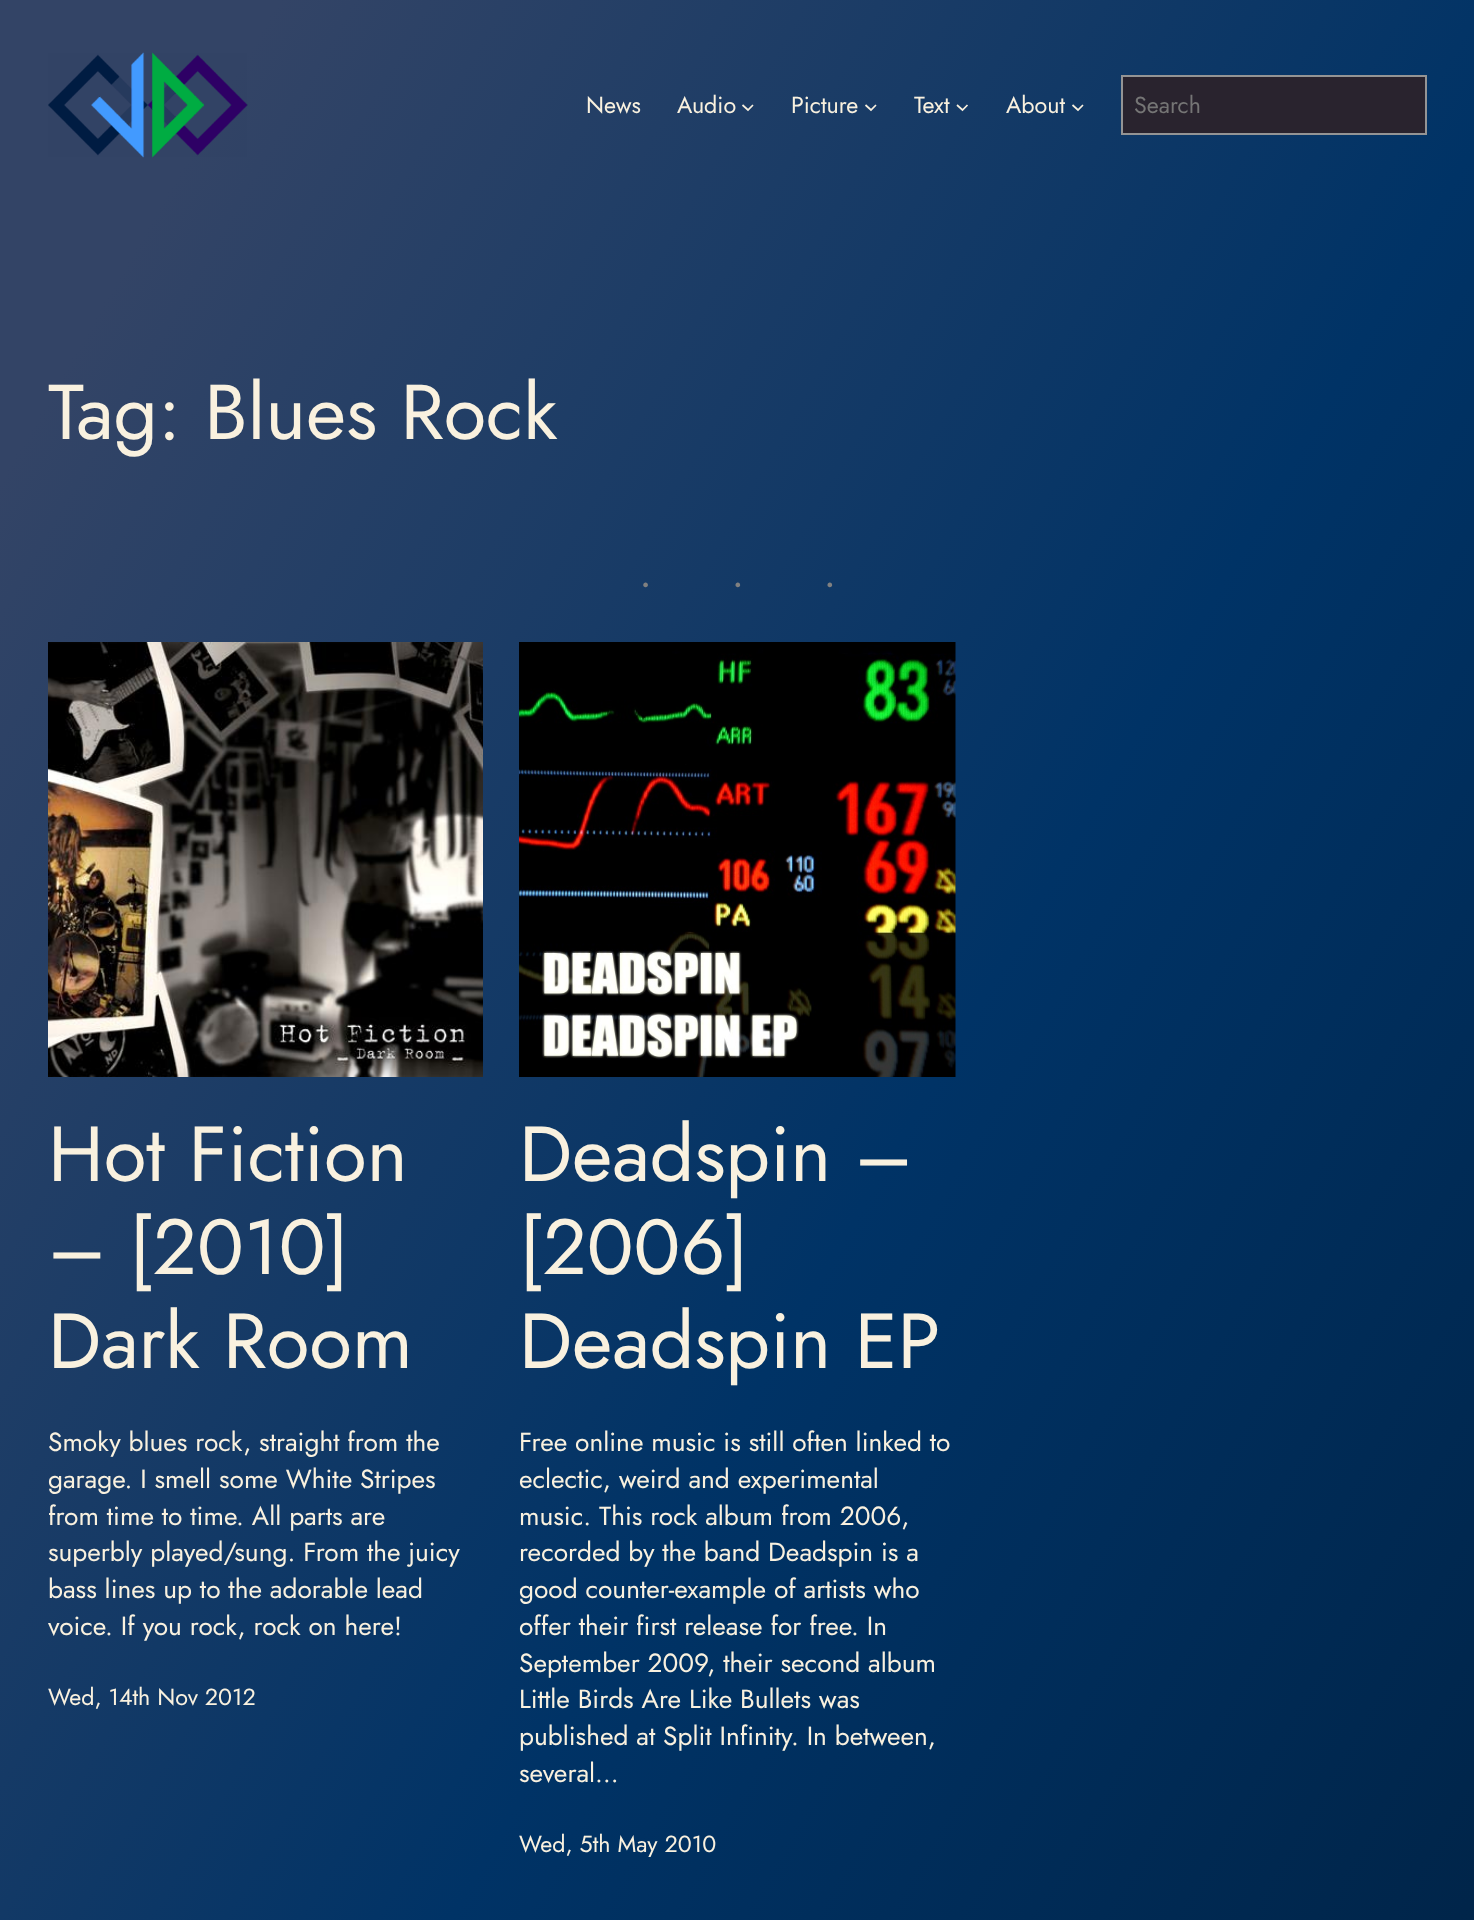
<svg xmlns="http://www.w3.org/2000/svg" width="1474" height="1920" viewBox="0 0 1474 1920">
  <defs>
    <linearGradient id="g1" gradientUnits="userSpaceOnUse" x1="-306" y1="530" x2="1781" y2="1735"><stop offset="0.1" stop-color="rgb(51,68,102)"/><stop offset="0.56" stop-color="rgb(0,51,102)"/><stop offset="1" stop-color="rgb(0,34,68)"/></linearGradient>
  </defs>
  <rect width="100%" height="100%" fill="rgb(255,255,255)"/>
  <rect x="0" y="0" width="1474" height="1920" fill="url(#g1)"/>
  <image x="48" y="52" width="200" height="106" href="pic1.png"/>
  <g font-family="Jost" font-size="23.25" fill="rgb(249,241,223)">
    <text x="586" y="113">News</text>
    <text x="677" y="113">Audio</text>
  </g>
  <path d="M742.5 105L748 110L753 105" fill="none" stroke="rgb(249,241,223)" stroke-width="1.7"/>
  <text x="791" y="113" font-family="Jost" font-size="23.25" fill="rgb(249,241,223)">Picture</text>
  <path d="M865.5 105L871 110L876 105" fill="none" stroke="rgb(249,241,223)" stroke-width="1.7"/>
  <text x="914" y="113" font-family="Jost" font-size="23.25" fill="rgb(249,241,223)">Text</text>
  <path d="M957 105L962.5 110L967.5 105" fill="none" stroke="rgb(249,241,223)" stroke-width="1.7"/>
  <text x="1006" y="113" font-family="Jost" font-size="23.25" fill="rgb(249,241,223)">About</text>
  <path d="M1072.5 105L1078 110L1083 105" fill="none" stroke="rgb(249,241,223)" stroke-width="1.7"/>
  <rect x="1122" y="76" width="304" height="58" fill="rgb(41,35,46)" stroke="rgb(148,148,148)" stroke-width="2"/>
  <text x="1134" y="113" font-family="Jost" font-size="23.25" fill="rgb(117,117,117)">Search</text>
  <text x="48" y="439" font-family="Jost" font-size="77.5" fill="rgb(249,241,223)">Tag: Blues Rock</text>
  <text x="639" y="598" font-family="Liberation Serif" font-size="39.5" letter-spacing="79" fill="rgb(128,128,128)">···</text>
  <image x="48" y="642" width="435" height="435" href="pic2.png"/>
  <g font-family="Jost" font-size="78" fill="rgb(249,241,223)">
    <text>
      <tspan x="48" y="1181">Hot Fiction</tspan>
      <tspan x="48" y="1274">– [2010]</tspan>
      <tspan x="48" y="1368">Dark Room</tspan>
    </text>
  </g>
  <g font-family="Jost" font-size="26.25" fill="rgb(249,241,223)">
    <text>
      <tspan x="48" y="1451">Smoky blues rock, straight from the</tspan>
      <tspan x="48" y="1488">garage. I smell some White Stripes</tspan>
      <tspan x="48" y="1525">from time to time. All parts are</tspan>
      <tspan x="48" y="1561">superbly played/sung. From the juicy</tspan>
      <tspan x="48" y="1598">bass lines up to the adorable lead</tspan>
      <tspan x="48" y="1635">voice. If you rock, rock on here!</tspan>
    </text>
  </g>
  <text x="48" y="1705" font-family="Jost" font-size="23.25" fill="rgb(249,241,223)">Wed, 14th Nov 2012</text>
  <image x="519" y="642" width="437" height="435" href="pic3.png"/>
  <g font-family="Jost" font-size="78" fill="rgb(249,241,223)">
    <text>
      <tspan x="519" y="1181">Deadspin –</tspan>
      <tspan x="519" y="1274">[2006]</tspan>
      <tspan x="519" y="1368">Deadspin EP</tspan>
    </text>
  </g>
  <g font-family="Jost" font-size="26.25" fill="rgb(249,241,223)">
    <text>
      <tspan x="519" y="1451">Free online music is still often linked to</tspan>
      <tspan x="519" y="1488">eclectic, weird and experimental</tspan>
      <tspan x="519" y="1525">music. This rock album from 2006,</tspan>
      <tspan x="519" y="1561">recorded by the band Deadspin is a</tspan>
      <tspan x="519" y="1598">good counter-example of artists who</tspan>
      <tspan x="519" y="1635">offer their first release for free. In</tspan>
      <tspan x="519" y="1672">September 2009, their second album</tspan>
      <tspan x="519" y="1708">Little Birds Are Like Bullets was</tspan>
      <tspan x="519" y="1745">published at Split Infinity. In between,</tspan>
      <tspan x="519" y="1782">several…</tspan>
    </text>
  </g>
  <text x="519" y="1852" font-family="Jost" font-size="23.25" fill="rgb(249,241,223)">Wed, 5th May 2010</text>
</svg>
